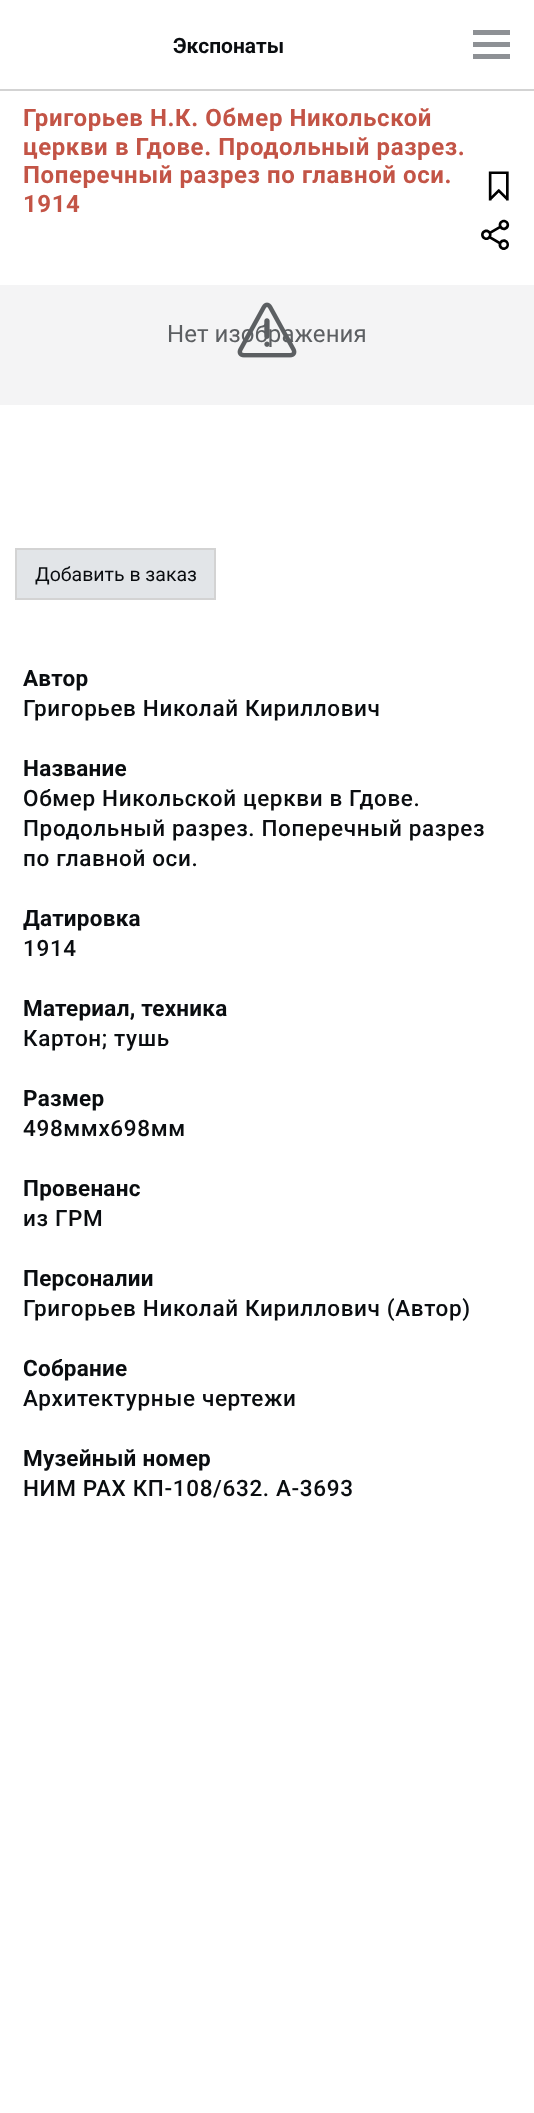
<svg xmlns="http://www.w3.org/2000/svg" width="534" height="2113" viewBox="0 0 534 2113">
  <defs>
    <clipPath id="clip1"><rect x="23" y="663" width="489" height="870"/></clipPath>
  </defs>
  <rect width="100%" height="100%" fill="rgb(255,255,255)"/>
  <rect x="0" y="89" width="534" height="2" fill="rgb(211,211,211)"/>
  <text x="173" y="53" font-family="Roboto" font-size="21" font-weight="bold" fill="rgb(10,13,16)">Экспонаты</text>
  <rect x="473" y="30" width="37" height="5" fill="rgb(142,145,149)"/>
  <rect x="473" y="42" width="37" height="5" fill="rgb(142,145,149)"/>
  <rect x="473" y="54" width="37" height="5" fill="rgb(142,145,149)"/>
  <g font-family="Roboto" font-size="24" font-weight="bold" letter-spacing="0.6" fill="rgb(195,84,70)">
    <text>
      <tspan x="23" y="126">Григорьев Н.К. Обмер Никольской</tspan>
      <tspan x="23" y="155">церкви в Гдове. Продольный разрез.</tspan>
      <tspan x="23" y="183">Поперечный разрез по главной оси.</tspan>
      <tspan x="23" y="212">1914</tspan>
    </text>
  </g>
  <rect x="0" y="285" width="534" height="120" fill="rgb(244,244,245)"/>
  <text x="167" y="342" font-family="Roboto" font-size="24" letter-spacing="0.1" fill="rgb(92,95,98)">Нет изображения</text>
  <image x="237" y="302" width="60" height="56" href="pic1.png"/>
  <rect x="16" y="549" width="199" height="50" fill="rgb(226,229,232)" stroke="rgb(211,211,211)" stroke-width="2"/>
  <text x="35" y="581" font-family="Roboto" font-size="19.5" fill="rgb(10,13,16)">Добавить в заказ</text>
  <image x="488" y="171" width="21" height="30" href="pic2.png"/>
  <image x="481" y="219" width="29" height="31" href="pic3.png"/>
  <text x="23" y="686" font-family="Roboto" font-size="22.5" font-weight="bold" letter-spacing="0.25" fill="rgb(10,13,16)">Автор</text>
  <text x="23" y="716" font-family="Roboto" font-size="22.5" font-weight="500" letter-spacing="0.65" fill="rgb(10,13,16)">Григорьев Николай Кириллович</text>
  <text x="23" y="776" font-family="Roboto" font-size="22.5" font-weight="bold" letter-spacing="0.25" fill="rgb(10,13,16)">Название</text>
  <g font-family="Roboto" font-size="22.5" font-weight="500" letter-spacing="0.65" fill="rgb(10,13,16)">
    <text>
      <tspan x="23" y="806">Обмер Никольской церкви в Гдове.</tspan>
      <tspan x="23" y="836">Продольный разрез. Поперечный разрез</tspan>
      <tspan x="23" y="866">по главной оси.</tspan>
    </text>
  </g>
  <g clip-path="url(#clip1)">
    <text x="23" y="926" font-family="Roboto" font-size="22.5" font-weight="bold" letter-spacing="0.25" fill="rgb(10,13,16)">Датировка</text>
  </g>
  <text x="23" y="956" font-family="Roboto" font-size="22.5" font-weight="500" letter-spacing="0.65" fill="rgb(10,13,16)">1914</text>
  <text x="23" y="1016" font-family="Roboto" font-size="22.5" font-weight="bold" letter-spacing="0.25" fill="rgb(10,13,16)">Материал, техника</text>
  <text x="23" y="1046" font-family="Roboto" font-size="22.5" font-weight="500" letter-spacing="0.65" fill="rgb(10,13,16)">Картон; тушь</text>
  <text x="23" y="1106" font-family="Roboto" font-size="22.5" font-weight="bold" letter-spacing="0.25" fill="rgb(10,13,16)">Размер</text>
  <text x="23" y="1136" font-family="Roboto" font-size="22.5" font-weight="500" letter-spacing="0.65" fill="rgb(10,13,16)">498ммх698мм</text>
  <text x="23" y="1196" font-family="Roboto" font-size="22.5" font-weight="bold" letter-spacing="0.25" fill="rgb(10,13,16)">Провенанс</text>
  <text x="23" y="1226" font-family="Roboto" font-size="22.5" font-weight="500" letter-spacing="0.65" fill="rgb(10,13,16)">из ГРМ</text>
  <text x="23" y="1286" font-family="Roboto" font-size="22.5" font-weight="bold" letter-spacing="0.25" fill="rgb(10,13,16)">Персоналии</text>
  <text x="23" y="1316" font-family="Roboto" font-size="22.5" font-weight="500" letter-spacing="0.65" fill="rgb(10,13,16)">Григорьев Николай Кириллович (Автор)</text>
  <text x="23" y="1376" font-family="Roboto" font-size="22.5" font-weight="bold" letter-spacing="0.25" fill="rgb(10,13,16)">Собрание</text>
  <text x="23" y="1406" font-family="Roboto" font-size="22.5" font-weight="500" letter-spacing="0.65" fill="rgb(10,13,16)">Архитектурные чертежи</text>
  <text x="23" y="1466" font-family="Roboto" font-size="22.5" font-weight="bold" letter-spacing="0.25" fill="rgb(10,13,16)">Музейный номер</text>
  <text x="23" y="1496" font-family="Roboto" font-size="22.5" font-weight="500" letter-spacing="0.65" fill="rgb(10,13,16)">НИМ РАХ КП-108/632. А-3693</text>
</svg>
